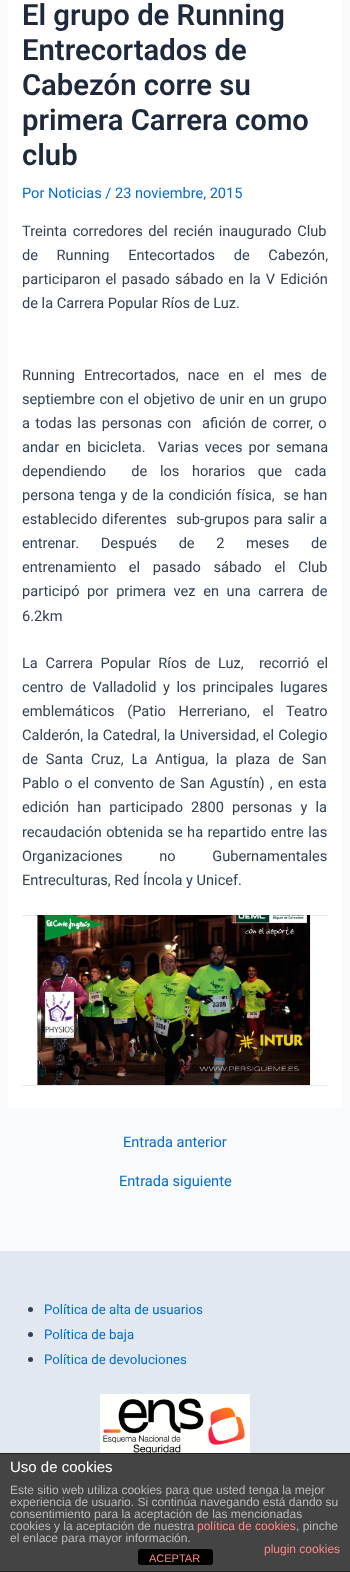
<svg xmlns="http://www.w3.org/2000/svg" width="350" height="1572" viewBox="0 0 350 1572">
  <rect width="100%" height="100%" fill="rgb(249,250,251)"/>
  <rect x="8" y="0" width="334" height="1108" fill="rgb(255,255,255)"/>
  <g font-family="Roboto" font-size="29.25" font-weight="600" fill="rgb(30,41,59)">
    <text>
      <tspan x="22" y="25">El grupo de Running</tspan>
      <tspan x="22" y="60">Entrecortados de</tspan>
      <tspan x="22" y="95">Cabezón corre su</tspan>
      <tspan x="22" y="130">primera Carrera como</tspan>
      <tspan x="22" y="165">club</tspan>
    </text>
  </g>
  <text x="22" y="198" font-family="Roboto" font-size="14.6" fill="rgb(4,107,210)">Por Noticias / 23 noviembre, 2015</text>
  <g font-family="Roboto" font-size="14.6" fill="rgb(51,65,85)">
    <text>
      <tspan x="22" y="236" word-spacing="2">Treinta corredores del recién inaugurado Club</tspan>
      <tspan x="22" y="260" word-spacing="15">de Running Entecortados de Cabezón,</tspan>
      <tspan x="22" y="284" word-spacing="1.5">participaron el pasado sábado en la V Edición</tspan>
      <tspan x="22" y="308">de la Carrera Popular Ríos de Luz.</tspan>
    </text>
    <text xml:space="preserve"><tspan x="22" y="380" word-spacing="5.5">Running Entrecortados, nace en el mes de</tspan><tspan x="22" y="404" word-spacing="0.75">septiembre con el objetivo de unir en un grupo</tspan><tspan x="22" y="428" word-spacing="1.75">a todas las personas con  afición de correr, o</tspan><tspan x="22" y="452" word-spacing="2.5">andar en bicicleta.  Varias veces por semana</tspan><tspan x="22" y="476" word-spacing="9">dependiendo  de los horarios que cada</tspan><tspan x="22" y="500" word-spacing="0.9">persona tenga y de la condición física,  se han</tspan><tspan x="22" y="524" word-spacing="1">establecido diferentes  sub-grupos para salir a</tspan><tspan x="22" y="548" word-spacing="18">entrenar. Después de 2 meses de</tspan><tspan x="22" y="572" word-spacing="9">entrenamiento el pasado sábado el Club</tspan><tspan x="22" y="596" word-spacing="4">participó por primera vez en una carrera de</tspan><tspan x="22" y="621">6.2km</tspan></text>
    <text xml:space="preserve"><tspan x="22" y="668" word-spacing="4">La Carrera Popular Ríos de Luz,  recorrió el</tspan><tspan x="22" y="692" word-spacing="3">centro de Valladolid y los principales lugares</tspan><tspan x="22" y="716" word-spacing="9">emblemáticos (Patio Herreriano, el Teatro</tspan><tspan x="22" y="740" word-spacing="0.5">Calderón, la Catedral, la Universidad, el Colegio</tspan><tspan x="22" y="764" word-spacing="4.25">de Santa Cruz, La Antigua, la plaza de San</tspan><tspan x="22" y="788" word-spacing="1.5">Pablo o el convento de San Agustín) , en esta</tspan><tspan x="22" y="812" word-spacing="4.5">edición han participado 2800 personas y la</tspan><tspan x="22" y="837" word-spacing="0.75">recaudación obtenida se ha repartido entre las</tspan><tspan x="22" y="861" word-spacing="33">Organizaciones no Gubernamentales</tspan><tspan x="22" y="885">Entreculturas, Red Íncola y Unicef.</tspan></text>
  </g>
  <image x="22" y="915" width="306" height="171" href="pic1.png"/>
  <g font-family="Roboto" font-size="14.6" fill="rgb(4,107,210)">
    <text x="123" y="1147">Entrada anterior</text>
    <text x="119" y="1186">Entrada siguiente</text>
  </g>
  <rect x="0" y="1251" width="350" height="202" fill="rgb(226,232,240)"/>
  <circle cx="30.5" cy="1309.5" r="2.5" fill="rgb(51,65,85)"/>
  <text x="44" y="1314" font-family="Roboto" font-size="13.25" fill="rgb(4,107,210)">Política de alta de usuarios</text>
  <circle cx="30.5" cy="1334.5" r="2.5" fill="rgb(51,65,85)"/>
  <text x="44" y="1339" font-family="Roboto" font-size="13.25" fill="rgb(4,107,210)">Política de baja</text>
  <circle cx="30.5" cy="1359.5" r="2.5" fill="rgb(51,65,85)"/>
  <text x="44" y="1364" font-family="Roboto" font-size="13.25" fill="rgb(4,107,210)">Política de devoluciones</text>
  <image x="100" y="1394" width="150" height="59" href="pic2.png"/>
  <rect x="0" y="1454" width="350" height="117" fill="rgb(68,68,68)"/>
  <rect x="0" y="1453" width="350" height="1" fill="rgb(34,34,34)"/>
  <rect x="0" y="1571" width="350" height="1" fill="rgb(34,34,34)"/>
  <text x="10" y="1472" font-family="Liberation Sans" font-size="15" fill="rgb(255,255,255)">Uso de cookies</text>
  <g font-family="Liberation Sans" font-size="12" fill="rgb(187,187,187)">
    <text>
      <tspan x="10" y="1494">Este sitio web utiliza cookies para que usted tenga la mejor</tspan>
      <tspan x="10" y="1506">experiencia de usuario. Si continúa navegando está dando su</tspan>
      <tspan x="10" y="1518">consentimiento para la aceptación de las mencionadas</tspan>
      <tspan x="10" y="1530">cookies y la aceptación de nuestra</tspan>
    </text>
  </g>
  <text x="197" y="1530" font-family="Liberation Sans" font-size="12" fill="rgb(255,136,136)">política de cookies</text>
  <g font-family="Liberation Sans" font-size="12" fill="rgb(187,187,187)">
    <text x="296" y="1530">, pinche</text>
    <text x="10" y="1542">el enlace para mayor información.</text>
  </g>
  <text x="264" y="1553" font-family="Liberation Sans" font-size="12" fill="rgb(255,136,136)">plugin cookies</text>
  <rect x="138" y="1549" width="75" height="16" rx="3" fill="rgb(0,0,0)"/>
  <text x="149" y="1562" font-family="Liberation Sans" font-size="11" fill="rgb(255,136,136)">ACEPTAR</text>
</svg>
